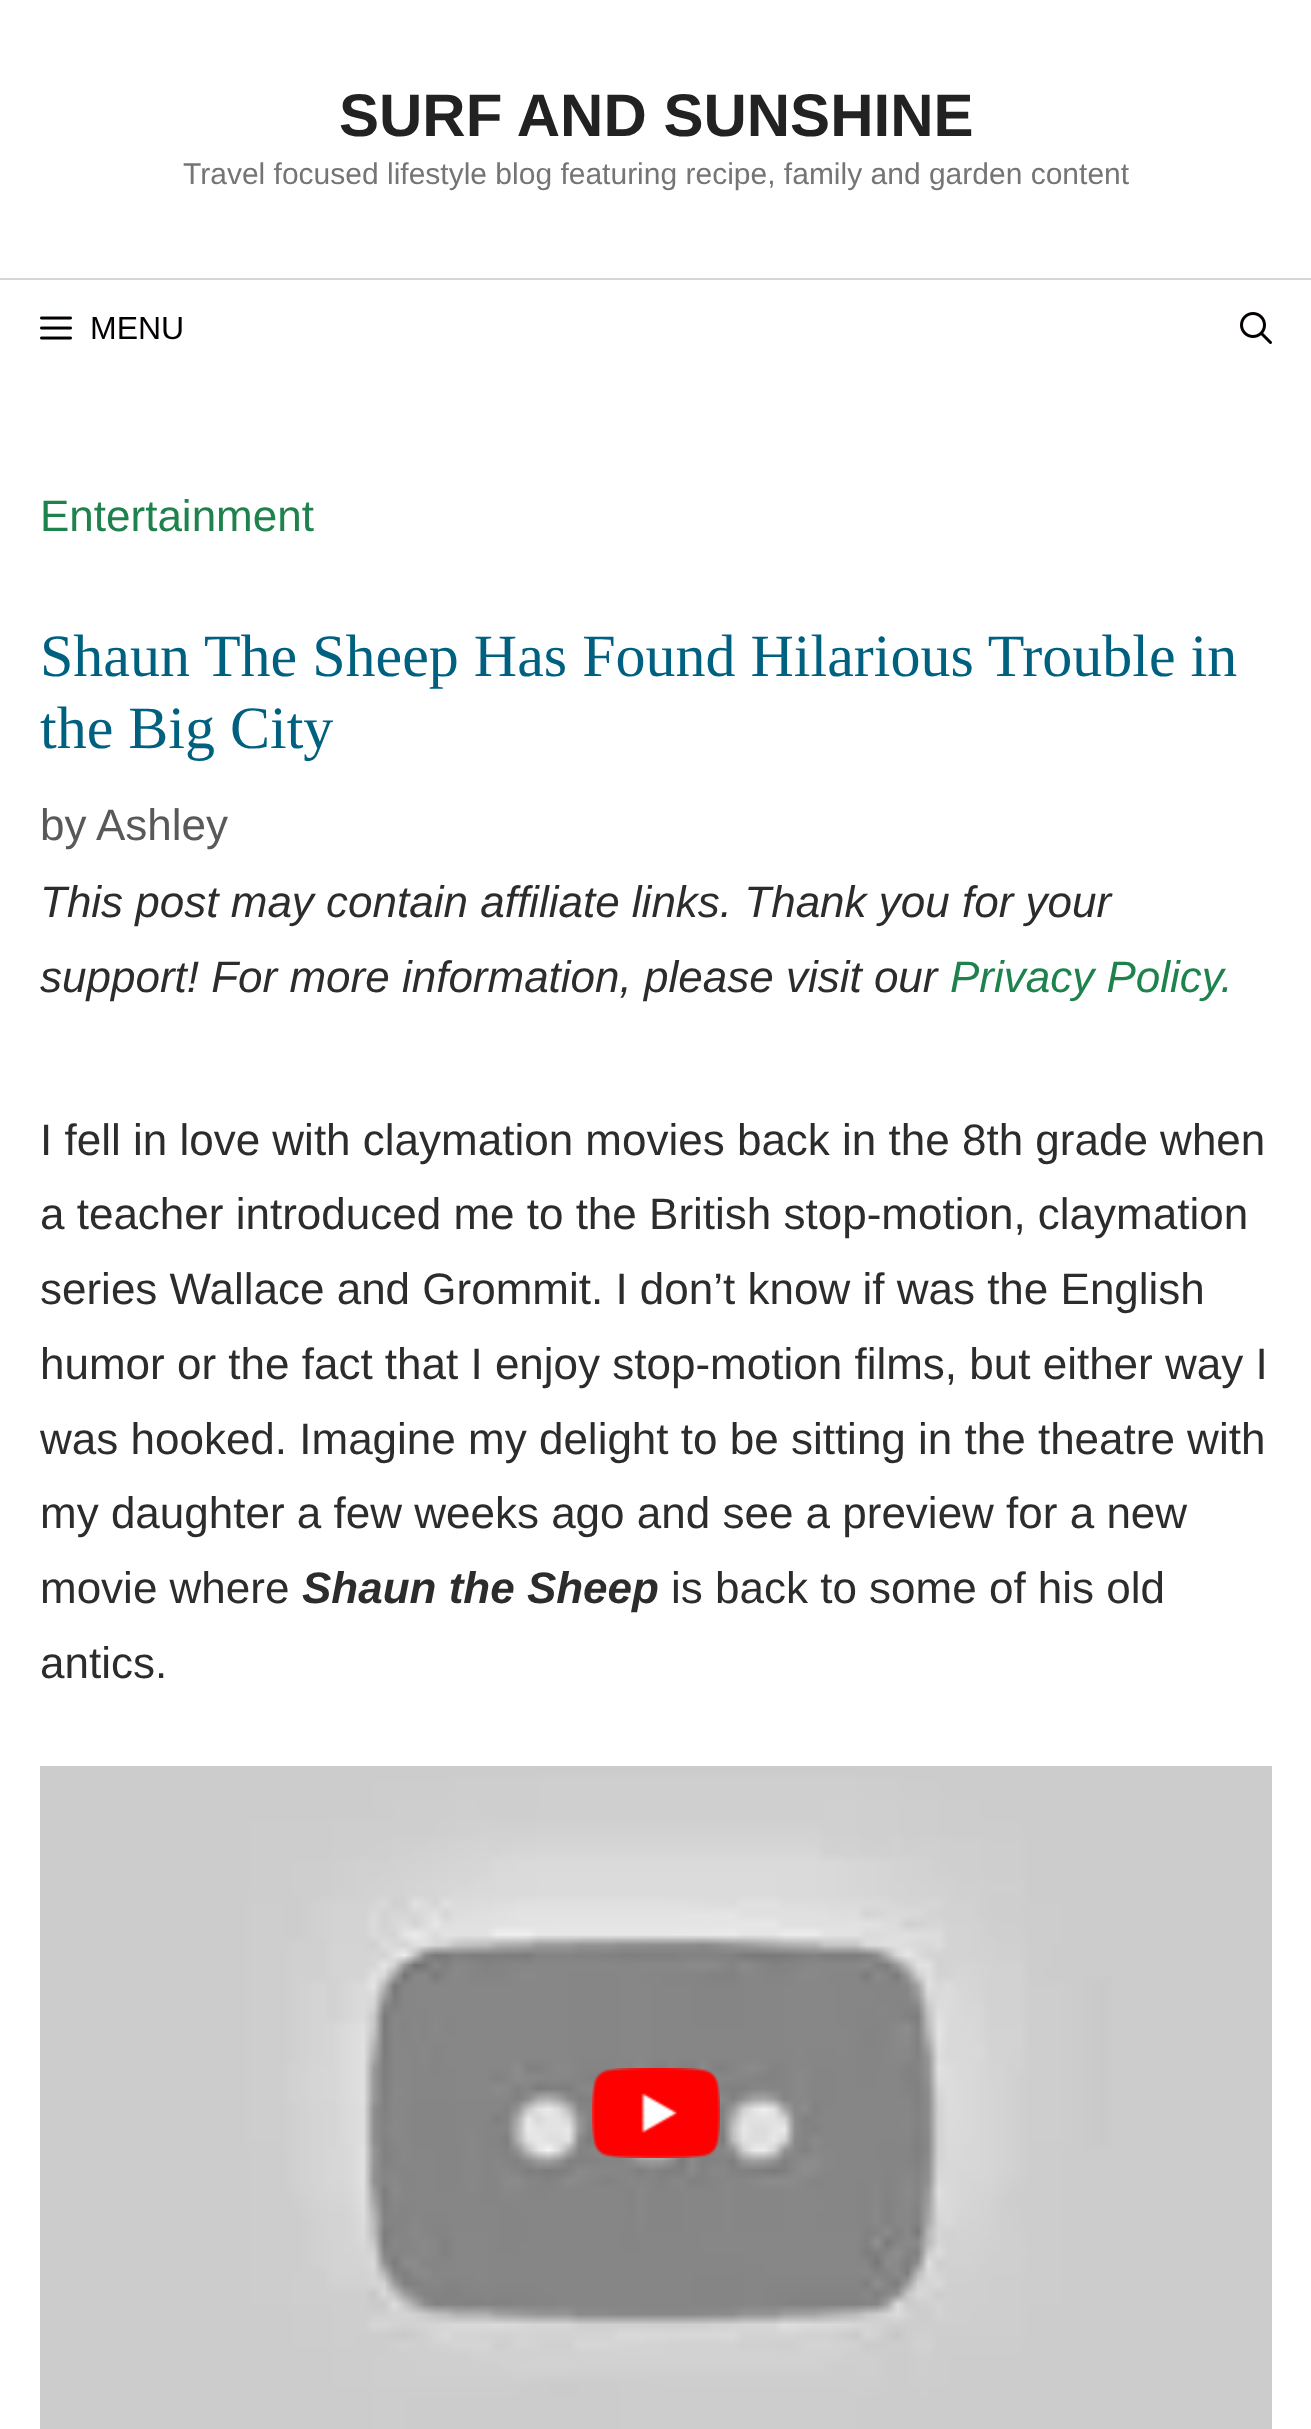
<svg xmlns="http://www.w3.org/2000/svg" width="1311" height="2429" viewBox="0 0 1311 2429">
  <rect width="100%" height="100%" fill="rgb(255,255,255)"/>
  <text x="339" y="136" font-family="Liberation Sans" font-size="60" font-weight="bold" fill="rgb(34,34,34)">SURF AND SUNSHINE</text>
  <text x="183" y="184" font-family="Liberation Sans" font-size="30" fill="rgb(117,117,117)">Travel focused lifestyle blog featuring recipe, family and garden content</text>
  <rect x="0" y="278" width="1311" height="2" fill="rgb(212,215,216)"/>
  <image x="40" y="316" width="32" height="24" href="pic1.png"/>
  <text x="90" y="339" font-family="Liberation Sans" font-size="32" fill="rgb(5,0,0)">MENU</text>
  <image x="1240" y="312" width="32" height="32" href="pic2.png"/>
  <text x="40" y="531" font-family="Liberation Sans" font-size="44" fill="rgb(30,130,76)">Entertainment</text>
  <g font-family="Liberation Serif" font-size="60" fill="rgb(0,96,128)">
    <text>
      <tspan x="40" y="676">Shaun The Sheep Has Found Hilarious Trouble in</tspan>
      <tspan x="40" y="748">the Big City</tspan>
    </text>
  </g>
  <g font-family="Liberation Sans" font-size="44" fill="rgb(89,89,89)">
    <text x="40" y="840">by</text>
    <text x="96" y="840">Ashley</text>
  </g>
  <g font-family="Liberation Sans" font-size="44" font-style="italic" fill="rgb(44,44,44)">
    <text>
      <tspan x="40" y="917">This post may contain affiliate links. Thank you for your</tspan>
      <tspan x="40" y="992">support! For more information, please visit our</tspan>
    </text>
  </g>
  <text x="950" y="992" font-family="Liberation Sans" font-size="44" font-style="italic" fill="rgb(30,130,76)">Privacy Policy.</text>
  <g font-family="Liberation Sans" font-size="44" fill="rgb(44,44,44)">
    <text>
      <tspan x="40" y="1155">I fell in love with claymation movies back in the 8th grade when</tspan>
      <tspan x="40" y="1229">a teacher introduced me to the British stop-motion, claymation</tspan>
      <tspan x="40" y="1304">series Wallace and Grommit. I don’t know if was the English</tspan>
      <tspan x="40" y="1379">humor or the fact that I enjoy stop-motion films, but either way I</tspan>
      <tspan x="40" y="1454">was hooked. Imagine my delight to be sitting in the theatre with</tspan>
      <tspan x="40" y="1528">my daughter a few weeks ago and see a preview for a new</tspan>
      <tspan x="40" y="1603">movie where</tspan>
    </text>
  </g>
  <text x="302" y="1603" font-family="Liberation Sans" font-size="44" font-weight="bold" font-style="italic" fill="rgb(44,44,44)">Shaun the Sheep</text>
  <g font-family="Liberation Sans" font-size="44" fill="rgb(44,44,44)">
    <text x="671" y="1603">is back to some of his old</text>
    <text x="40" y="1678">antics.</text>
  </g>
  <image x="40" y="1766" width="1232" height="663" href="pic3.png"/>
  <image x="592" y="2068" width="128" height="90" href="pic4.png"/>
</svg>
